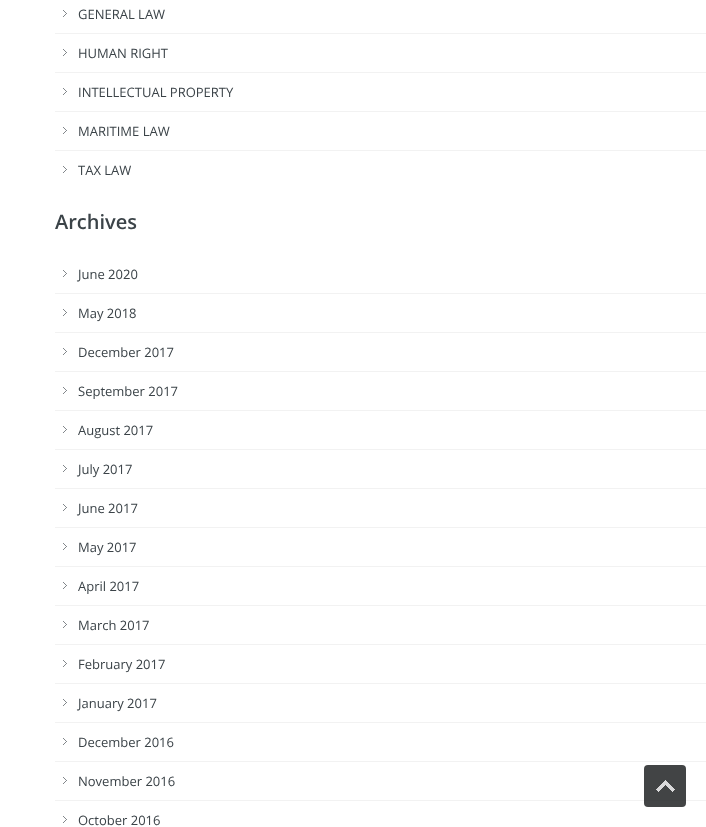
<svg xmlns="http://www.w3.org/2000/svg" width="706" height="827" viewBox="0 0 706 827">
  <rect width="100%" height="100%" fill="rgb(255,255,255)"/>
  <image x="63" y="10" width="4" height="7" href="pic1.png"/>
  <rect x="55" y="33" width="651" height="1" fill="rgb(242,242,242)"/>
  <text x="78" y="19" font-family="Open Sans" font-size="13" fill="rgb(59,67,72)">GENERAL LAW</text>
  <image x="63" y="49" width="4" height="7" href="pic1.png"/>
  <rect x="55" y="72" width="651" height="1" fill="rgb(242,242,242)"/>
  <text x="78" y="58" font-family="Open Sans" font-size="13" fill="rgb(59,67,72)">HUMAN RIGHT</text>
  <image x="63" y="88" width="4" height="7" href="pic1.png"/>
  <rect x="55" y="111" width="651" height="1" fill="rgb(242,242,242)"/>
  <text x="78" y="97" font-family="Open Sans" font-size="13" fill="rgb(59,67,72)">INTELLECTUAL PROPERTY</text>
  <image x="63" y="127" width="4" height="7" href="pic1.png"/>
  <rect x="55" y="150" width="651" height="1" fill="rgb(242,242,242)"/>
  <text x="78" y="136" font-family="Open Sans" font-size="13" fill="rgb(59,67,72)">MARITIME LAW</text>
  <image x="63" y="166" width="4" height="7" href="pic1.png"/>
  <text x="78" y="175" font-family="Open Sans" font-size="13" fill="rgb(59,67,72)">TAX LAW</text>
  <text x="55" y="229" font-family="Open Sans" font-size="20" font-weight="600" fill="rgb(59,67,72)">Archives</text>
  <image x="63" y="270" width="4" height="7" href="pic1.png"/>
  <rect x="55" y="293" width="651" height="1" fill="rgb(242,242,242)"/>
  <text x="78" y="279" font-family="Open Sans" font-size="13" fill="rgb(59,67,72)">June 2020</text>
  <image x="63" y="309" width="4" height="7" href="pic1.png"/>
  <rect x="55" y="332" width="651" height="1" fill="rgb(242,242,242)"/>
  <text x="78" y="318" font-family="Open Sans" font-size="13" fill="rgb(59,67,72)">May 2018</text>
  <image x="63" y="348" width="4" height="7" href="pic1.png"/>
  <rect x="55" y="371" width="651" height="1" fill="rgb(242,242,242)"/>
  <text x="78" y="357" font-family="Open Sans" font-size="13" fill="rgb(59,67,72)">December 2017</text>
  <image x="63" y="387" width="4" height="7" href="pic1.png"/>
  <rect x="55" y="410" width="651" height="1" fill="rgb(242,242,242)"/>
  <text x="78" y="396" font-family="Open Sans" font-size="13" fill="rgb(59,67,72)">September 2017</text>
  <image x="63" y="426" width="4" height="7" href="pic1.png"/>
  <rect x="55" y="449" width="651" height="1" fill="rgb(242,242,242)"/>
  <text x="78" y="435" font-family="Open Sans" font-size="13" fill="rgb(59,67,72)">August 2017</text>
  <image x="63" y="465" width="4" height="7" href="pic1.png"/>
  <rect x="55" y="488" width="651" height="1" fill="rgb(242,242,242)"/>
  <text x="78" y="474" font-family="Open Sans" font-size="13" fill="rgb(59,67,72)">July 2017</text>
  <image x="63" y="504" width="4" height="7" href="pic1.png"/>
  <rect x="55" y="527" width="651" height="1" fill="rgb(242,242,242)"/>
  <text x="78" y="513" font-family="Open Sans" font-size="13" fill="rgb(59,67,72)">June 2017</text>
  <image x="63" y="543" width="4" height="7" href="pic1.png"/>
  <rect x="55" y="566" width="651" height="1" fill="rgb(242,242,242)"/>
  <text x="78" y="552" font-family="Open Sans" font-size="13" fill="rgb(59,67,72)">May 2017</text>
  <image x="63" y="582" width="4" height="7" href="pic1.png"/>
  <rect x="55" y="605" width="651" height="1" fill="rgb(242,242,242)"/>
  <text x="78" y="591" font-family="Open Sans" font-size="13" fill="rgb(59,67,72)">April 2017</text>
  <image x="63" y="621" width="4" height="7" href="pic1.png"/>
  <rect x="55" y="644" width="651" height="1" fill="rgb(242,242,242)"/>
  <text x="78" y="630" font-family="Open Sans" font-size="13" fill="rgb(59,67,72)">March 2017</text>
  <image x="63" y="660" width="4" height="7" href="pic1.png"/>
  <rect x="55" y="683" width="651" height="1" fill="rgb(242,242,242)"/>
  <text x="78" y="669" font-family="Open Sans" font-size="13" fill="rgb(59,67,72)">February 2017</text>
  <image x="63" y="699" width="4" height="7" href="pic1.png"/>
  <rect x="55" y="722" width="651" height="1" fill="rgb(242,242,242)"/>
  <text x="78" y="708" font-family="Open Sans" font-size="13" fill="rgb(59,67,72)">January 2017</text>
  <image x="63" y="738" width="4" height="7" href="pic1.png"/>
  <rect x="55" y="761" width="651" height="1" fill="rgb(242,242,242)"/>
  <text x="78" y="747" font-family="Open Sans" font-size="13" fill="rgb(59,67,72)">December 2016</text>
  <image x="63" y="777" width="4" height="7" href="pic1.png"/>
  <rect x="55" y="800" width="651" height="1" fill="rgb(242,242,242)"/>
  <text x="78" y="786" font-family="Open Sans" font-size="13" fill="rgb(59,67,72)">November 2016</text>
  <image x="63" y="816" width="4" height="7" href="pic1.png"/>
  <text x="78" y="825" font-family="Open Sans" font-size="13" fill="rgb(59,67,72)">October 2016</text>
  <rect x="644" y="765" width="42" height="42" rx="4" fill="rgba(19,21,23,0.8)"/>
  <image x="656" y="780" width="19" height="12" href="pic2.png"/>
</svg>
